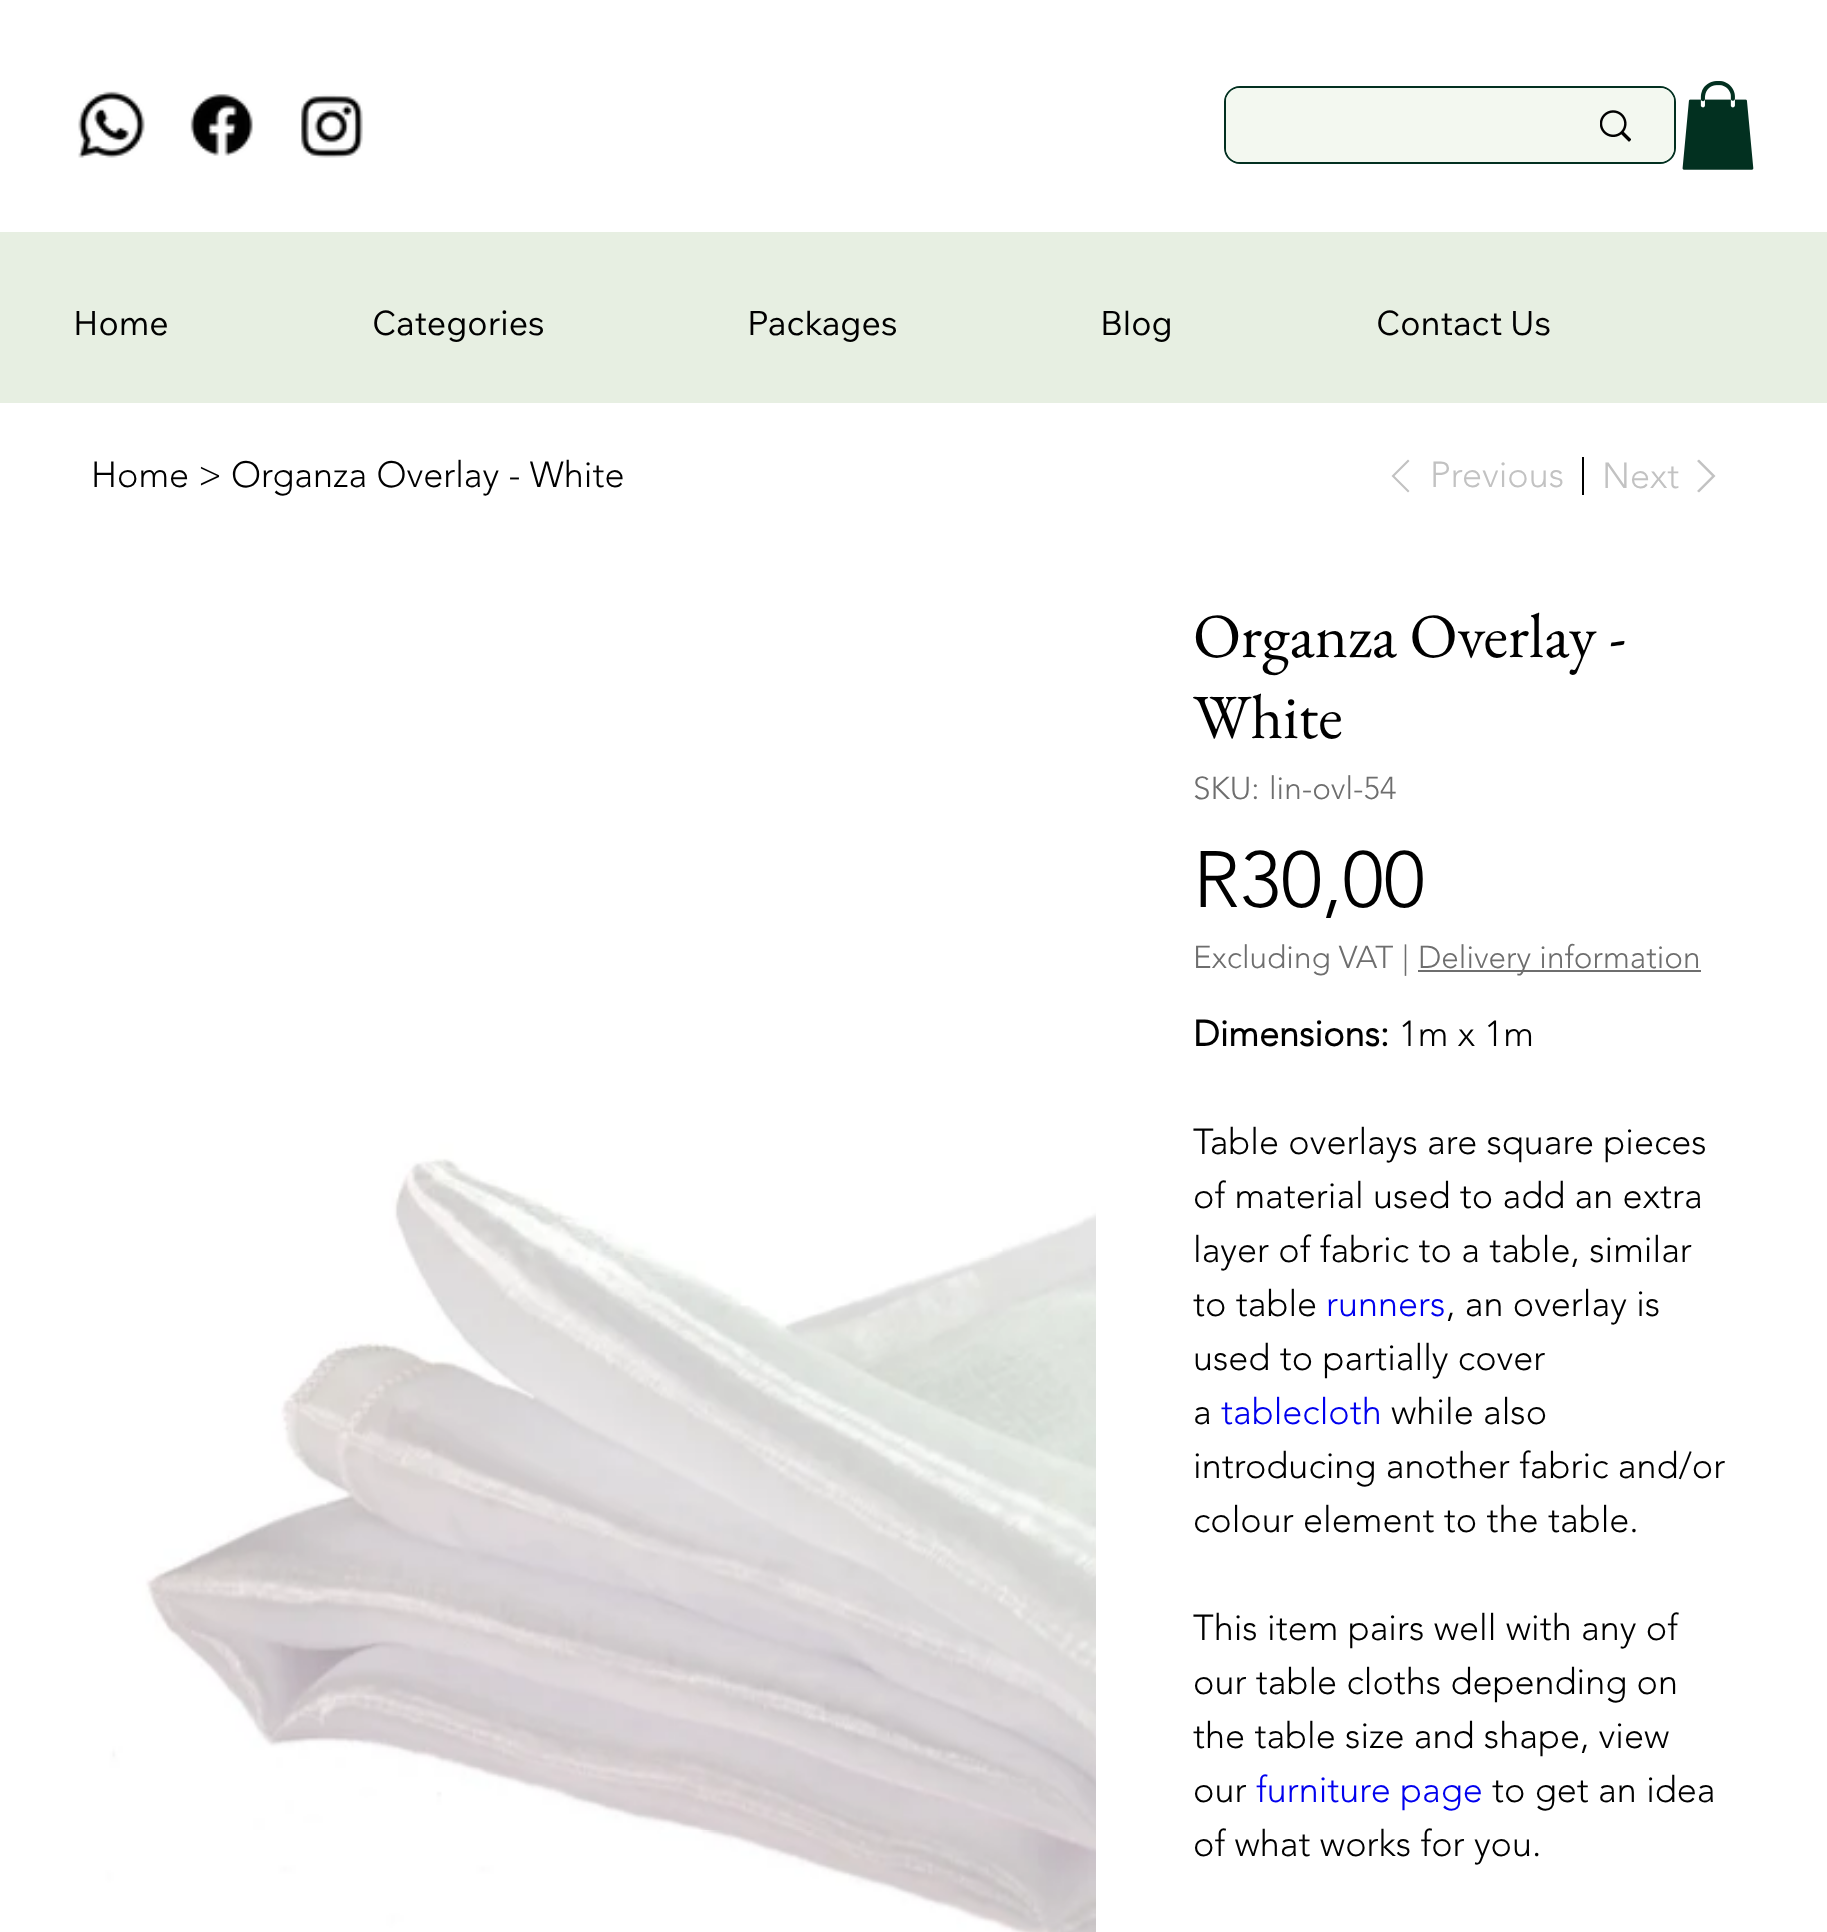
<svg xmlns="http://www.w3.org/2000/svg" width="1827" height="1932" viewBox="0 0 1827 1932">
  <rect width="100%" height="100%" fill="rgb(255,255,255)"/>
  <rect x="0" y="232" width="1827" height="171" fill="rgb(231,239,226)"/>
  <image x="78" y="91" width="67" height="67" href="pic1.png"/>
  <image x="190" y="94" width="63" height="62" href="pic2.png"/>
  <image x="301" y="94" width="62" height="64" href="pic3.png"/>
  <rect x="1225" y="87" width="450" height="76" rx="15" fill="none" stroke="rgb(2,48,32)" stroke-width="2"/>
  <rect x="1226" y="88" width="448" height="74" rx="14" fill="rgb(243,248,240)"/>
  <image x="1600" y="110" width="31" height="32" href="pic4.png"/>
  <image x="1682" y="81" width="72" height="89" href="pic5.png"/>
  <g font-family="Wix Madefor Text" font-size="33.75" fill="rgb(0,0,0)">
    <text x="73" y="335">Home</text>
    <text x="372" y="335">Categories</text>
    <text x="747" y="335">Packages</text>
    <text x="1100" y="335">Blog</text>
    <text x="1376" y="335">Contact Us</text>
  </g>
  <g font-family="'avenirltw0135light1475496'" font-size="36" font-weight="300" fill="rgb(0,0,0)">
    <text x="91" y="487">Home</text>
    <text x="198" y="487">&gt;</text>
    <text x="231" y="487">Organza Overlay - White</text>
  </g>
  <path d="M1408 459.5L1409.5 461L1394.5 476L1409.5 491L1408 492.5L1391.5 476Z" fill="rgb(194,194,194)" fill-rule="evenodd"/>
  <text x="1430" y="487" font-family="'avenirltw0135light1475496'" font-size="36" font-weight="300" fill="rgb(194,194,194)">Previous</text>
  <rect x="1582" y="457" width="2" height="38" fill="rgb(0,0,0)"/>
  <text x="1602" y="488" font-family="'avenirltw0135light1475496'" font-size="36" font-weight="300" fill="rgb(194,194,194)">Next</text>
  <path d="M1699 492.5L1697 491L1712 476L1697 461L1699 459.5L1715.5 476Z" fill="rgb(194,194,194)" fill-rule="evenodd"/>
  <image x="92" y="684" width="1004" height="1248" href="pic6.png"/>
  <g font-family="EB Garamond" font-size="63" fill="rgb(0,0,0)">
    <text>
      <tspan x="1193" y="657">Organza Overlay -</tspan>
      <tspan x="1193" y="738">White</tspan>
    </text>
  </g>
  <g font-family="'avenirltw0135light1475496'" font-size="31.5" font-weight="300" fill="rgb(110,110,110)">
    <text x="1193" y="799">SKU:</text>
    <text x="1269" y="799">lin-ovl-54</text>
  </g>
  <text x="1193" y="907" font-family="'avenirltw0135light1475496'" font-size="79" font-weight="300" fill="rgb(0,0,0)">R30,00</text>
  <g font-family="'avenirltw0135light1475496'" font-size="31.5" font-weight="300" fill="rgb(110,110,110)">
    <text x="1193" y="968">Excluding VAT</text>
    <text x="1402" y="968">|</text>
  </g>
  <rect x="1418" y="970" width="283" height="2" fill="rgb(110,110,110)"/>
  <text x="1418" y="968" font-family="'avenirltw0135light1475496'" font-size="31.5" font-weight="300" fill="rgb(110,110,110)">Delivery information</text>
  <text x="1193" y="1046" font-family="'avenirltw0135light1475496'" font-size="36" font-weight="bold" fill="rgb(0,0,0)">Dimensions:</text>
  <g font-family="'avenirltw0135light1475496'" font-size="36" font-weight="300" fill="rgb(0,0,0)">
    <text x="1399" y="1046">1m x 1m</text>
    <text>
      <tspan x="1193" y="1154">Table overlays are square pieces</tspan>
      <tspan x="1193" y="1208">of material used to add an extra</tspan>
      <tspan x="1193" y="1262">layer of fabric to a table, similar</tspan>
      <tspan x="1193" y="1316">to table</tspan>
    </text>
  </g>
  <text x="1326" y="1316" font-family="'avenirltw0135light1475496'" font-size="36" font-weight="300" fill="rgb(0,0,238)">runners</text>
  <g font-family="'avenirltw0135light1475496'" font-size="36" font-weight="300" fill="rgb(0,0,0)">
    <text x="1446" y="1316">, an overlay is</text>
    <text>
      <tspan x="1193" y="1370">used to partially cover</tspan>
      <tspan x="1193" y="1424">a</tspan>
    </text>
  </g>
  <text x="1221" y="1424" font-family="'avenirltw0135light1475496'" font-size="36" font-weight="300" fill="rgb(0,0,238)">tablecloth</text>
  <g font-family="'avenirltw0135light1475496'" font-size="36" font-weight="300" fill="rgb(0,0,0)">
    <text x="1391" y="1424">while also</text>
    <text>
      <tspan x="1193" y="1478">introducing another fabric and/or</tspan>
      <tspan x="1193" y="1532">colour element to the table.</tspan>
    </text>
    <text>
      <tspan x="1193" y="1640">This item pairs well with any of</tspan>
      <tspan x="1193" y="1694">our table cloths depending on</tspan>
      <tspan x="1193" y="1748">the table size and shape, view</tspan>
      <tspan x="1193" y="1802">our</tspan>
    </text>
  </g>
  <text x="1256" y="1802" font-family="'avenirltw0135light1475496'" font-size="36" font-weight="300" fill="rgb(0,0,238)">furniture page</text>
  <g font-family="'avenirltw0135light1475496'" font-size="36" font-weight="300" fill="rgb(0,0,0)">
    <text x="1492" y="1802">to get an idea</text>
    <text x="1193" y="1856">of what works for you.</text>
  </g>
</svg>
